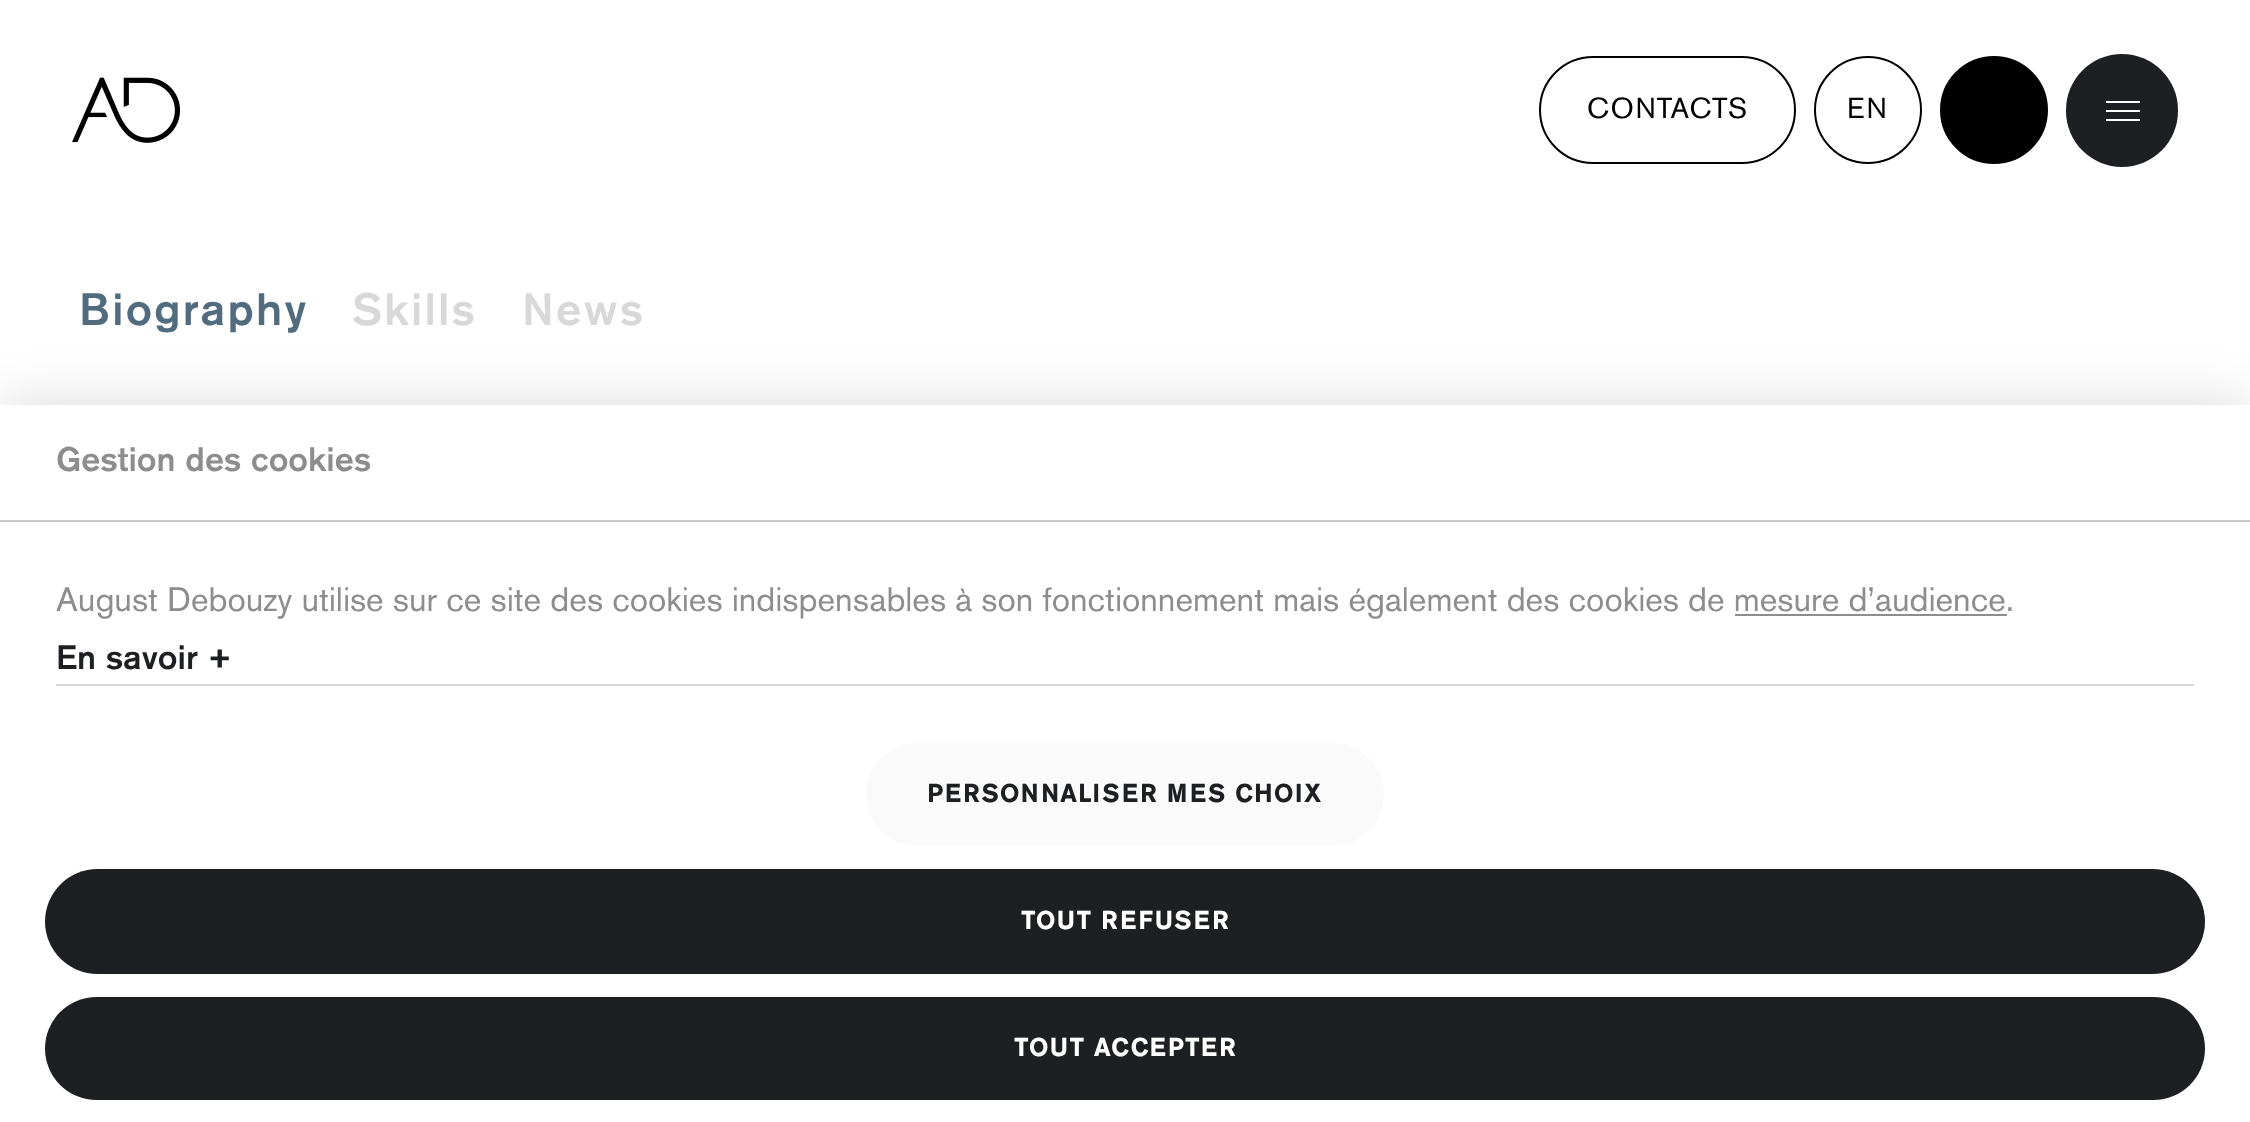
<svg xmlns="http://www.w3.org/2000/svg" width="2250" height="1122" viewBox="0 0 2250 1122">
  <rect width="100%" height="100%" fill="rgb(255,255,255)"/>
  <image x="72" y="77" width="108" height="66" href="pic1.png"/>
  <rect x="1540" y="57" width="255" height="106" rx="53" fill="none" stroke="rgb(0,0,0)" stroke-width="2"/>
  <text x="1587" y="118" font-family="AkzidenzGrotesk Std" font-size="28.75" letter-spacing="1" fill="rgb(0,0,0)">CONTACTS</text>
  <circle cx="1868" cy="110" r="53" fill="none" stroke="rgb(0,0,0)" stroke-width="2"/>
  <text x="1847" y="118" font-family="AkzidenzGrotesk Std" font-size="28.75" letter-spacing="1" fill="rgb(0,0,0)">EN</text>
  <circle cx="1994" cy="110" r="53" fill="rgb(0,0,0)" stroke="rgb(0,0,0)" stroke-width="2"/>
  <rect x="2066" y="54" width="112" height="113" rx="56" fill="rgb(30,31,35)"/>
  <rect x="2106" y="110" width="34" height="2" fill="rgb(255,255,255)"/>
  <rect x="2106" y="101" width="34" height="2" fill="rgb(255,255,255)"/>
  <rect x="2106" y="119" width="34" height="2" fill="rgb(255,255,255)"/>
  <text x="79" y="325" font-family="AkzidenzGrotesk Std" font-size="45" font-weight="500" letter-spacing="2.25" fill="rgb(82,108,127)">Biography</text>
  <g font-family="AkzidenzGrotesk Std" font-size="45" font-weight="500" letter-spacing="2.25" fill="rgb(216,216,216)">
    <text x="352" y="325">Skills</text>
    <text x="522" y="325">News</text>
  </g>
  <rect x="0" y="405" width="2250" height="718" fill="rgba(0,0,0,0.15)" filter="blur(28px)"/>
  <rect x="0" y="405" width="2250" height="717" fill="rgb(255,255,255)"/>
  <rect x="0" y="520" width="2250" height="2" fill="rgb(202,202,202)"/>
  <text x="56" y="471" font-family="AkzidenzGrotesk Std" font-size="33.75" font-weight="500" fill="rgb(141,141,141)">Gestion des cookies</text>
  <text x="56" y="611" font-family="AkzidenzGrotesk Std" font-size="33.75" fill="rgb(141,141,141)">August Debouzy utilise sur ce site des cookies indispensables à son fonctionnement mais également des cookies de mesure d’audience.</text>
  <rect x="1735" y="614" width="272" height="2" fill="rgb(141,141,141)"/>
  <text x="56" y="669" font-family="AkzidenzGrotesk Std" font-size="33.75" font-weight="500" fill="rgb(30,31,35)">En savoir +</text>
  <rect x="56" y="684" width="2138" height="2" fill="rgb(217,217,217)"/>
  <rect x="866" y="743" width="518" height="103" rx="51.5" fill="rgb(250,250,250)"/>
  <text x="927" y="802" font-family="AkzidenzGrotesk Std" font-size="24.75" font-weight="bold" letter-spacing="1.8" fill="rgb(30,31,35)">PERSONNALISER MES CHOIX</text>
  <rect x="45" y="869" width="2160" height="105" rx="52.5" fill="rgb(30,31,35)"/>
  <text x="1021" y="929" font-family="AkzidenzGrotesk Std" font-size="24.75" font-weight="bold" letter-spacing="1.8" fill="rgb(255,255,255)">TOUT REFUSER</text>
  <rect x="45" y="997" width="2160" height="103" rx="51.5" fill="rgb(30,31,35)"/>
  <text x="1014" y="1056" font-family="AkzidenzGrotesk Std" font-size="24.75" font-weight="bold" letter-spacing="1.8" fill="rgb(255,255,255)">TOUT ACCEPTER</text>
</svg>
